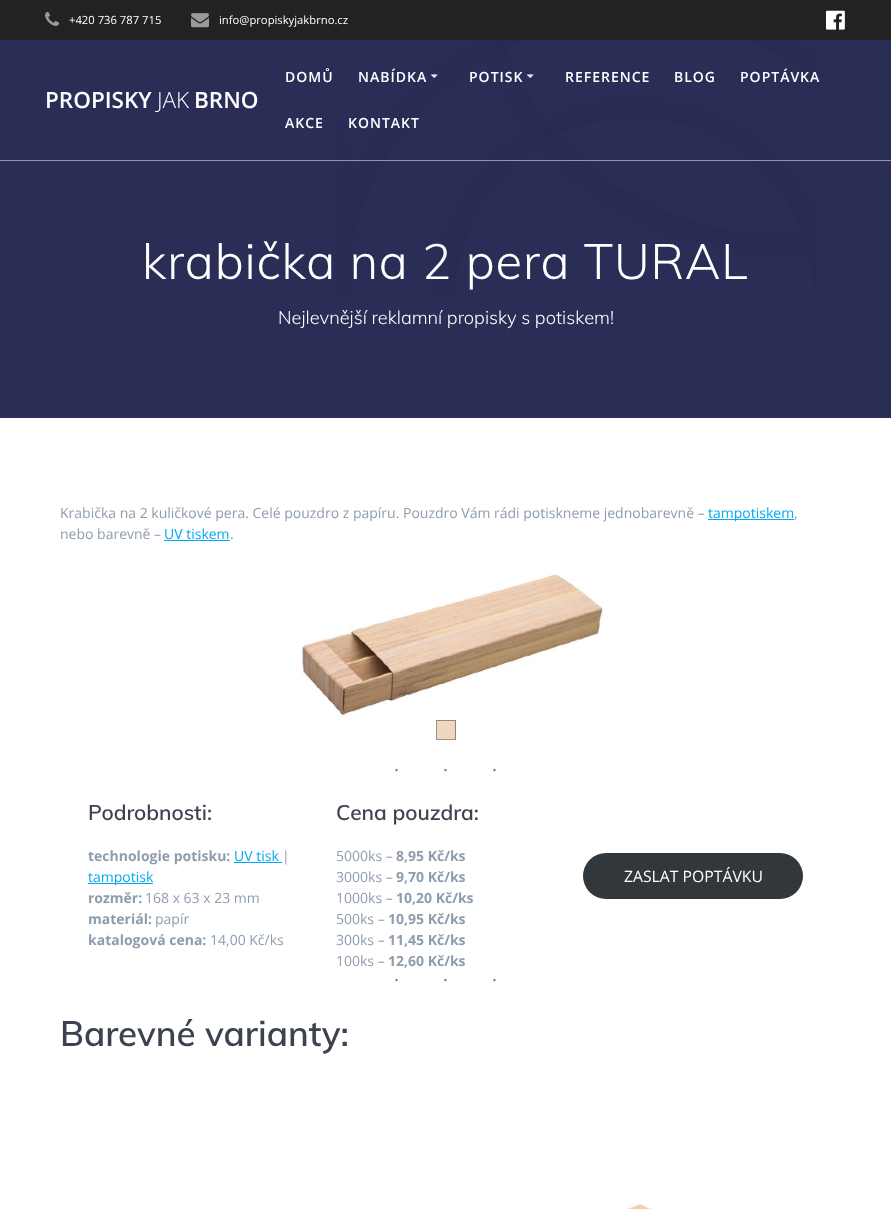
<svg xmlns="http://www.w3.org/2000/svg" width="891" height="1209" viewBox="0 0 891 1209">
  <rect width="100%" height="100%" fill="rgb(255,255,255)"/>
  <rect x="0" y="0" width="891" height="40" fill="rgb(34,34,34)"/>
  <image x="45" y="11" width="15" height="15" href="pic1.png"/>
  <text x="69" y="24" font-family="Open Sans" font-size="11.25" fill="rgb(255,255,255)">+420 736 787 715</text>
  <image x="191" y="13" width="18" height="15" href="pic2.png"/>
  <text x="219" y="24" font-family="Open Sans" font-size="11.25" fill="rgb(255,255,255)">info@propiskyjakbrno.cz</text>
  <image x="826" y="10" width="19" height="20" href="pic3.png"/>
  <rect x="0" y="40" width="891" height="378" fill="rgb(42,46,87)"/>
  <image x="338" y="40" width="480" height="257" href="pic6.png"/>
  <rect x="0" y="160" width="891" height="1" fill="rgba(255,255,255,0.5)"/>
  <text x="45" y="108" font-family="Open Sans" font-size="22.5" font-weight="600" fill="rgb(255,255,255)">PROPISKY</text>
  <text x="157" y="108" font-family="Open Sans" font-size="22.5" font-weight="300" fill="rgb(255,255,255)">JAK</text>
  <text x="194" y="108" font-family="Open Sans" font-size="22.5" font-weight="600" fill="rgb(255,255,255)">BRNO</text>
  <g font-family="Open Sans" font-size="14" font-weight="600" letter-spacing="1" fill="rgb(255,255,255)">
    <text x="285" y="82">DOMŮ</text>
    <text x="358" y="82">NABÍDKA</text>
  </g>
  <image x="431" y="74" width="7" height="4" href="pic4.png"/>
  <text x="469" y="82" font-family="Open Sans" font-size="14" font-weight="600" letter-spacing="1" fill="rgb(255,255,255)">POTISK</text>
  <image x="527" y="74" width="7" height="4" href="pic5.png"/>
  <g font-family="Open Sans" font-size="14" font-weight="600" letter-spacing="1" fill="rgb(255,255,255)">
    <text x="565" y="82">REFERENCE</text>
    <text x="674" y="82">BLOG</text>
    <text x="740" y="82">POPTÁVKA</text>
    <text x="285" y="128">AKCE</text>
    <text x="348" y="128">KONTAKT</text>
  </g>
  <text x="142" y="279" font-family="Muli" font-size="49" font-weight="300" letter-spacing="0.9" fill="rgb(255,255,255)">krabička na 2 pera TURAL</text>
  <text x="278" y="324" font-family="Muli" font-size="18.25" font-weight="300" fill="rgb(255,255,255)">Nejlevnější reklamní propisky s potiskem!</text>
  <text x="60" y="518" font-family="Open Sans" font-size="14" fill="rgb(142,157,174)">Krabička na 2 kuličkové pera. Celé pouzdro z papíru. Pouzdro Vám rádi potiskneme jednobarevně –</text>
  <rect x="708" y="519" width="86" height="1" fill="rgb(3,169,244)"/>
  <text x="708" y="518" font-family="Open Sans" font-size="14" fill="rgb(3,169,244)">tampotiskem</text>
  <g font-family="Open Sans" font-size="14" fill="rgb(142,157,174)">
    <text x="794" y="518">,</text>
    <text x="60" y="539">nebo barevně –</text>
  </g>
  <text x="164" y="539" font-family="Open Sans" font-size="14" fill="rgb(3,169,244)">UV tiskem</text>
  <rect x="164" y="540" width="66" height="1" fill="rgb(3,169,244)"/>
  <text x="230" y="539" font-family="Open Sans" font-size="14" fill="rgb(142,157,174)">.</text>
  <image x="301" y="574" width="302" height="166" href="pic7.png"/>
  <text x="393" y="777" font-family="Liberation Serif" font-size="21" letter-spacing="42" fill="rgb(128,128,128)">···</text>
  <text x="88" y="820" font-family="Muli" font-size="21" font-weight="600" fill="rgb(60,66,79)">Podrobnosti:</text>
  <text x="88" y="861" font-family="Open Sans" font-size="14" font-weight="bold" fill="rgb(142,157,174)">technologie potisku:</text>
  <text x="234" y="861" font-family="Open Sans" font-size="14" fill="rgb(3,169,244)">UV tisk</text>
  <rect x="234" y="862" width="48" height="1" fill="rgb(3,169,244)"/>
  <text x="282" y="861" font-family="Open Sans" font-size="14" fill="rgb(142,157,174)">|</text>
  <rect x="88" y="883" width="65" height="1" fill="rgb(3,169,244)"/>
  <text x="88" y="882" font-family="Open Sans" font-size="14" fill="rgb(3,169,244)">tampotisk</text>
  <text x="88" y="903" font-family="Open Sans" font-size="14" font-weight="bold" fill="rgb(142,157,174)">rozměr:</text>
  <text x="145" y="903" font-family="Open Sans" font-size="14" fill="rgb(142,157,174)">168 x 63 x 23 mm</text>
  <text x="88" y="924" font-family="Open Sans" font-size="14" font-weight="bold" fill="rgb(142,157,174)">materiál:</text>
  <text x="155" y="924" font-family="Open Sans" font-size="14" fill="rgb(142,157,174)">papír</text>
  <text x="88" y="945" font-family="Open Sans" font-size="14" font-weight="bold" fill="rgb(142,157,174)">katalogová cena:</text>
  <text x="210" y="945" font-family="Open Sans" font-size="14" fill="rgb(142,157,174)">14,00 Kč/ks</text>
  <text x="336" y="820" font-family="Muli" font-size="21" font-weight="600" fill="rgb(60,66,79)">Cena pouzdra:</text>
  <text x="336" y="861" font-family="Open Sans" font-size="14" fill="rgb(142,157,174)">5000ks –</text>
  <text x="396" y="861" font-family="Open Sans" font-size="14" font-weight="bold" fill="rgb(142,157,174)">8,95 Kč/ks</text>
  <text x="336" y="882" font-family="Open Sans" font-size="14" fill="rgb(142,157,174)">3000ks –</text>
  <text x="396" y="882" font-family="Open Sans" font-size="14" font-weight="bold" fill="rgb(142,157,174)">9,70 Kč/ks</text>
  <text x="336" y="903" font-family="Open Sans" font-size="14" fill="rgb(142,157,174)">1000ks –</text>
  <text x="396" y="903" font-family="Open Sans" font-size="14" font-weight="bold" fill="rgb(142,157,174)">10,20 Kč/ks</text>
  <text x="336" y="924" font-family="Open Sans" font-size="14" fill="rgb(142,157,174)">500ks –</text>
  <text x="388" y="924" font-family="Open Sans" font-size="14" font-weight="bold" fill="rgb(142,157,174)">10,95 Kč/ks</text>
  <text x="336" y="945" font-family="Open Sans" font-size="14" fill="rgb(142,157,174)">300ks –</text>
  <text x="388" y="945" font-family="Open Sans" font-size="14" font-weight="bold" fill="rgb(142,157,174)">11,45 Kč/ks</text>
  <text x="336" y="966" font-family="Open Sans" font-size="14" fill="rgb(142,157,174)">100ks –</text>
  <text x="388" y="966" font-family="Open Sans" font-size="14" font-weight="bold" fill="rgb(142,157,174)">12,60 Kč/ks</text>
  <rect x="583" y="853" width="220" height="46" rx="23" fill="rgb(50,55,60)"/>
  <text x="624" y="882" font-family="Open Sans" font-size="15.75" fill="rgb(255,255,255)">ZASLAT POPTÁVKU</text>
  <text x="393" y="987" font-family="Liberation Serif" font-size="21" letter-spacing="42" fill="rgb(128,128,128)">···</text>
  <text x="60" y="1046" font-family="Muli" font-size="35" font-weight="600" fill="rgb(60,66,79)">Barevné varianty:</text>
  <image x="621" y="1204" width="33" height="5" href="pic8.png"/>
</svg>
